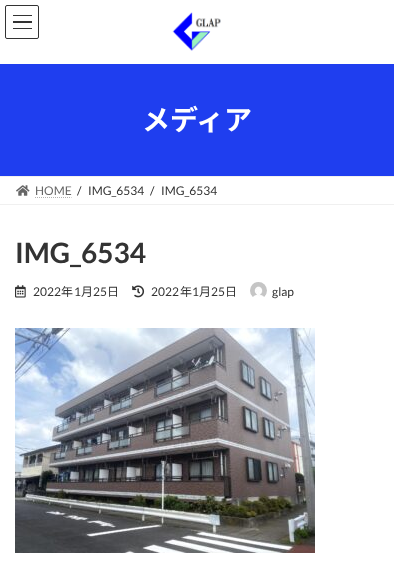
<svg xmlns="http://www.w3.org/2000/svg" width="394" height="571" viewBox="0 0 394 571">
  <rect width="100%" height="100%" fill="rgb(255,255,255)"/>
  <rect x="13" y="15" width="19" height="1" fill="rgb(51,51,51)"/>
  <rect x="13" y="21" width="19" height="2" fill="rgb(51,51,51)"/>
  <rect x="13" y="28" width="19" height="1" fill="rgb(51,51,51)"/>
  <rect x="5.5" y="5.5" width="33" height="33" rx="1.5" fill="none" stroke="rgb(51,51,51)"/>
  <image x="172" y="12" width="49" height="39" href="pic1.png"/>
  <rect x="0" y="64" width="394" height="112" fill="rgb(31,62,239)"/>
  <text x="142" y="130" font-family="Noto Sans JP" font-size="28" font-weight="bold" fill="rgb(255,255,255)">メディア</text>
  <rect x="0" y="176" width="394" height="1" fill="rgb(240,240,240)"/>
  <rect x="0" y="204" width="394" height="1" fill="rgb(240,240,240)"/>
  <image x="16" y="185" width="14" height="11" href="pic2.png"/>
  <text x="35" y="195" font-family="Lato" font-size="12" fill="rgb(102,102,102)">HOME</text>
  <path d="M35 197.5H71.5" fill="none" stroke="rgb(179,179,179)" stroke-dasharray="1 1"/>
  <g font-family="Lato" font-size="12" fill="rgb(51,51,51)">
    <text x="77" y="195">/</text>
    <text x="88" y="195">IMG_6534</text>
    <text x="150" y="195">/</text>
    <text x="161" y="195">IMG_6534</text>
  </g>
  <text x="15" y="263" font-family="Lato" font-size="28" font-weight="bold" fill="rgb(51,51,51)">IMG_6534</text>
  <image x="15" y="285" width="11" height="13" href="pic3.png"/>
  <text x="33" y="296" font-family="Lato" font-size="12" fill="rgb(51,51,51)">2022</text>
  <text x="61" y="296" font-family="Noto Sans JP" font-size="12" fill="rgb(51,51,51)">年</text>
  <text x="74" y="296" font-family="Lato" font-size="12" fill="rgb(51,51,51)">1</text>
  <text x="81" y="296" font-family="Noto Sans JP" font-size="12" fill="rgb(51,51,51)">月</text>
  <text x="93" y="296" font-family="Lato" font-size="12" fill="rgb(51,51,51)">25</text>
  <text x="107" y="296" font-family="Noto Sans JP" font-size="12" fill="rgb(51,51,51)">日</text>
  <image x="132" y="285" width="13" height="13" href="pic4.png"/>
  <text x="151" y="296" font-family="Lato" font-size="12" fill="rgb(51,51,51)">2022</text>
  <text x="180" y="296" font-family="Noto Sans JP" font-size="12" fill="rgb(51,51,51)">年</text>
  <text x="192" y="296" font-family="Lato" font-size="12" fill="rgb(51,51,51)">1</text>
  <text x="199" y="296" font-family="Noto Sans JP" font-size="12" fill="rgb(51,51,51)">月</text>
  <text x="211" y="296" font-family="Lato" font-size="12" fill="rgb(51,51,51)">25</text>
  <text x="225" y="296" font-family="Noto Sans JP" font-size="12" fill="rgb(51,51,51)">日</text>
  <image x="250" y="282" width="17" height="15" href="pic5.png"/>
  <text x="272" y="296" font-family="Lato" font-size="12" fill="rgb(51,51,51)">glap</text>
  <image x="15" y="328" width="300" height="225" href="pic6.png"/>
</svg>
